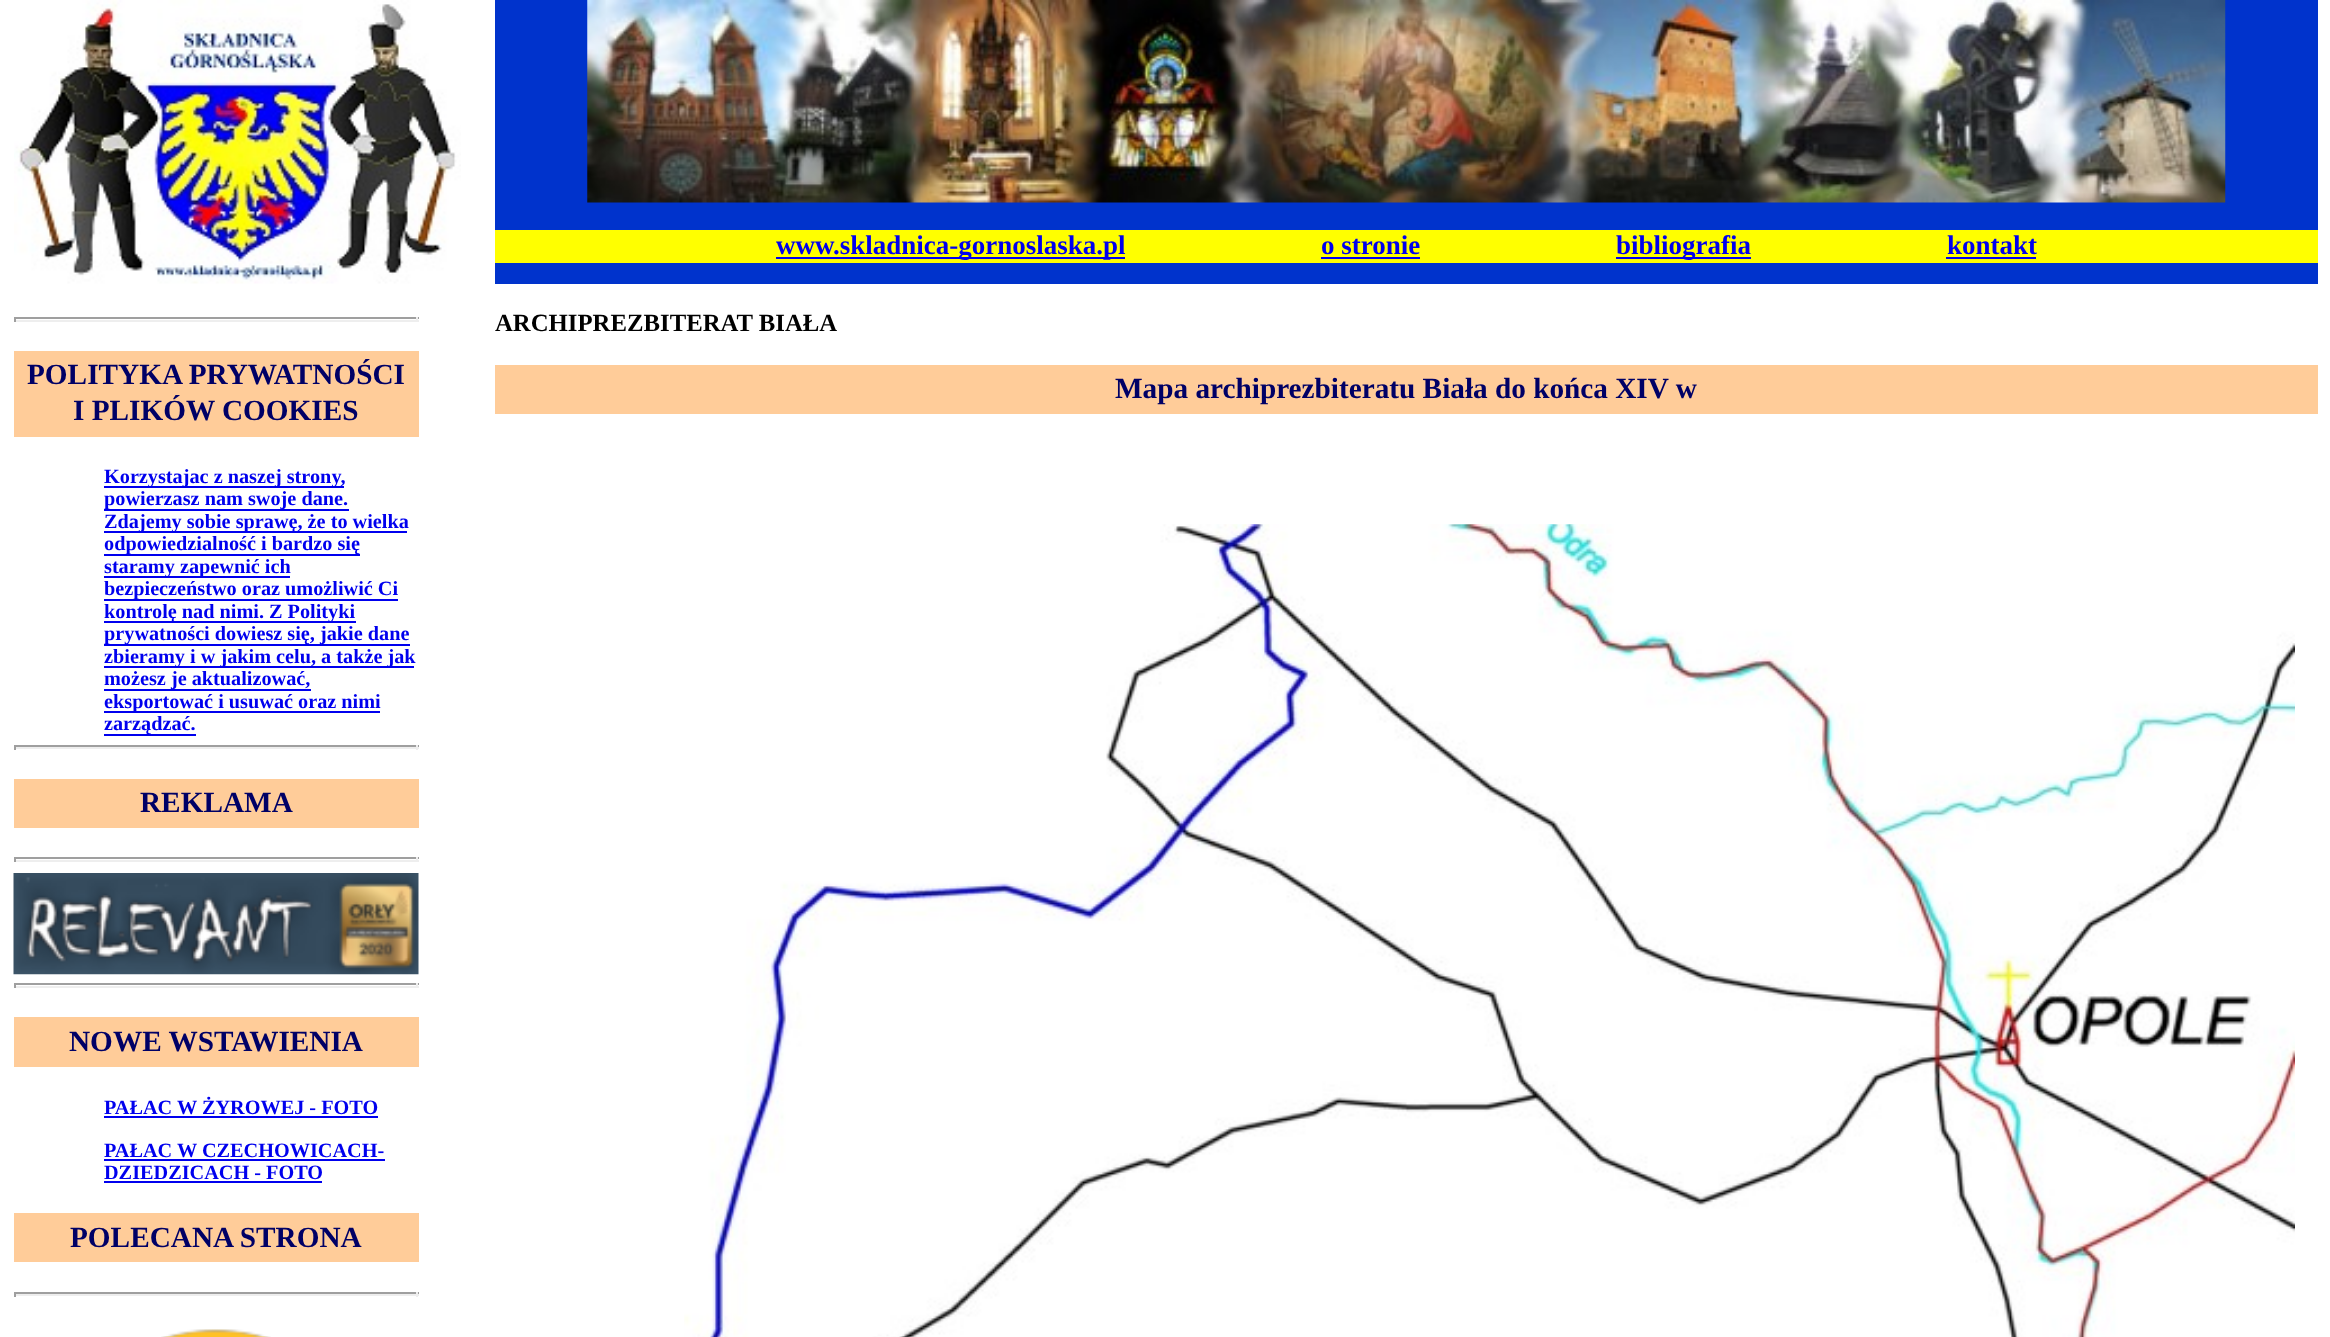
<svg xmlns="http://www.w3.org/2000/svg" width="2330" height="1337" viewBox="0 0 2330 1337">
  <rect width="100%" height="100%" fill="rgb(255,255,255)"/>
  <image x="14" y="0" width="447" height="284" href="pic1.png"/>
  <rect x="495" y="0" width="1823" height="284" fill="rgb(0,51,204)"/>
  <image x="587" y="0" width="1639" height="203" href="pic2.png"/>
  <rect x="495" y="230" width="1823" height="33" fill="rgb(255,255,0)"/>
  <rect x="776" y="257" width="349" height="2" fill="rgb(0,0,238)"/>
  <g font-family="Liberation Serif" font-size="27" font-weight="bold" fill="rgb(0,0,238)">
    <text x="776" y="254">www.skladnica-gornoslaska.pl</text>
    <text x="1321" y="254">o stronie</text>
  </g>
  <rect x="1321" y="257" width="99" height="2" fill="rgb(0,0,238)"/>
  <rect x="1616" y="257" width="135" height="2" fill="rgb(0,0,238)"/>
  <g font-family="Liberation Serif" font-size="27" font-weight="bold" fill="rgb(0,0,238)">
    <text x="1616" y="254">bibliografia</text>
    <text x="1947" y="254">kontakt</text>
  </g>
  <rect x="1946" y="257" width="90" height="2" fill="rgb(0,0,238)"/>
  <rect x="14" y="317" width="405" height="2" fill="rgb(159,159,159)"/>
  <rect x="416" y="317" width="2" height="5" fill="rgb(238,238,238)"/>
  <rect x="14" y="320" width="405" height="2" fill="rgb(238,238,238)"/>
  <rect x="14" y="317" width="2" height="5" fill="rgb(159,159,159)"/>
  <rect x="14" y="351" width="405" height="86" fill="rgb(255,204,153)"/>
  <g font-family="Liberation Serif" font-size="29.25" font-weight="bold" fill="rgb(0,0,102)">
    <text x="27" y="384">POLITYKA PRYWATNOŚCI</text>
    <text x="73" y="420">I PLIKÓW COOKIES</text>
  </g>
  <rect x="104" y="486" width="240" height="2" fill="rgb(0,0,238)"/>
  <text x="104" y="483" font-family="Liberation Serif" font-size="20.25" font-weight="bold" fill="rgb(0,0,238)">Korzystajac z naszej strony,</text>
  <rect x="104" y="509" width="245" height="2" fill="rgb(0,0,238)"/>
  <text x="104" y="505" font-family="Liberation Serif" font-size="20.25" font-weight="bold" fill="rgb(0,0,238)">powierzasz nam swoje dane.</text>
  <rect x="104" y="531" width="303" height="2" fill="rgb(0,0,238)"/>
  <text x="104" y="528" font-family="Liberation Serif" font-size="20.25" font-weight="bold" fill="rgb(0,0,238)">Zdajemy sobie sprawę, że to wielka</text>
  <rect x="104" y="554" width="256" height="2" fill="rgb(0,0,238)"/>
  <text x="104" y="550" font-family="Liberation Serif" font-size="20.25" font-weight="bold" fill="rgb(0,0,238)">odpowiedzialność i bardzo się</text>
  <rect x="104" y="576" width="186" height="2" fill="rgb(0,0,238)"/>
  <text x="104" y="573" font-family="Liberation Serif" font-size="20.25" font-weight="bold" fill="rgb(0,0,238)">staramy zapewnić ich</text>
  <rect x="104" y="599" width="294" height="2" fill="rgb(0,0,238)"/>
  <text x="104" y="595" font-family="Liberation Serif" font-size="20.25" font-weight="bold" fill="rgb(0,0,238)">bezpieczeństwo oraz umożliwić Ci</text>
  <rect x="104" y="621" width="252" height="2" fill="rgb(0,0,238)"/>
  <text x="104" y="618" font-family="Liberation Serif" font-size="20.25" font-weight="bold" fill="rgb(0,0,238)">kontrolę nad nimi. Z Polityki</text>
  <rect x="104" y="644" width="306" height="2" fill="rgb(0,0,238)"/>
  <text x="104" y="640" font-family="Liberation Serif" font-size="20.25" font-weight="bold" fill="rgb(0,0,238)">prywatności dowiesz się, jakie dane</text>
  <rect x="104" y="666" width="310" height="2" fill="rgb(0,0,238)"/>
  <text x="104" y="663" font-family="Liberation Serif" font-size="20.25" font-weight="bold" fill="rgb(0,0,238)">zbieramy i w jakim celu, a także jak</text>
  <rect x="104" y="689" width="207" height="2" fill="rgb(0,0,238)"/>
  <text x="104" y="685" font-family="Liberation Serif" font-size="20.25" font-weight="bold" fill="rgb(0,0,238)">możesz je aktualizować,</text>
  <rect x="104" y="711" width="276" height="2" fill="rgb(0,0,238)"/>
  <text x="104" y="708" font-family="Liberation Serif" font-size="20.25" font-weight="bold" fill="rgb(0,0,238)">eksportować i usuwać oraz nimi</text>
  <rect x="104" y="734" width="92" height="2" fill="rgb(0,0,238)"/>
  <text x="104" y="730" font-family="Liberation Serif" font-size="20.25" font-weight="bold" fill="rgb(0,0,238)">zarządzać.</text>
  <rect x="14" y="745" width="405" height="2" fill="rgb(159,159,159)"/>
  <rect x="416" y="745" width="2" height="5" fill="rgb(238,238,238)"/>
  <rect x="14" y="747" width="405" height="2" fill="rgb(238,238,238)"/>
  <rect x="14" y="745" width="2" height="5" fill="rgb(159,159,159)"/>
  <rect x="14" y="779" width="405" height="49" fill="rgb(255,204,153)"/>
  <text x="140" y="812" font-family="Liberation Serif" font-size="29.25" font-weight="bold" fill="rgb(0,0,102)">REKLAMA</text>
  <rect x="14" y="857" width="405" height="2" fill="rgb(159,159,159)"/>
  <rect x="416" y="857" width="2" height="5" fill="rgb(238,238,238)"/>
  <rect x="14" y="860" width="405" height="2" fill="rgb(238,238,238)"/>
  <rect x="14" y="857" width="2" height="5" fill="rgb(159,159,159)"/>
  <image x="13" y="873" width="406" height="102" href="pic3.png"/>
  <rect x="14" y="983" width="405" height="2" fill="rgb(159,159,159)"/>
  <rect x="416" y="983" width="2" height="5" fill="rgb(238,238,238)"/>
  <rect x="14" y="986" width="405" height="2" fill="rgb(238,238,238)"/>
  <rect x="14" y="983" width="2" height="5" fill="rgb(159,159,159)"/>
  <rect x="14" y="1017" width="405" height="50" fill="rgb(255,204,153)"/>
  <text x="69" y="1051" font-family="Liberation Serif" font-size="29.25" font-weight="bold" fill="rgb(0,0,102)">NOWE WSTAWIENIA</text>
  <text x="104" y="1114" font-family="Liberation Serif" font-size="20.25" font-weight="bold" fill="rgb(0,0,238)">PAŁAC W ŻYROWEJ - FOTO</text>
  <rect x="104" y="1116" width="274" height="2" fill="rgb(0,0,238)"/>
  <text x="104" y="1157" font-family="Liberation Serif" font-size="20.25" font-weight="bold" fill="rgb(0,0,238)">PAŁAC W CZECHOWICACH-</text>
  <rect x="104" y="1159" width="281" height="2" fill="rgb(0,0,238)"/>
  <text x="104" y="1179" font-family="Liberation Serif" font-size="20.25" font-weight="bold" fill="rgb(0,0,238)">DZIEDZICACH - FOTO</text>
  <rect x="104" y="1181" width="218" height="2" fill="rgb(0,0,238)"/>
  <rect x="14" y="1213" width="405" height="49" fill="rgb(255,204,153)"/>
  <text x="70" y="1247" font-family="Liberation Serif" font-size="29.25" font-weight="bold" fill="rgb(0,0,102)">POLECANA STRONA</text>
  <rect x="14" y="1292" width="405" height="2" fill="rgb(159,159,159)"/>
  <rect x="416" y="1292" width="2" height="5" fill="rgb(238,238,238)"/>
  <rect x="14" y="1294" width="405" height="2" fill="rgb(238,238,238)"/>
  <rect x="14" y="1292" width="2" height="5" fill="rgb(159,159,159)"/>
  <image x="161" y="1329" width="110" height="8" href="pic4.png"/>
  <text x="495" y="331" font-family="Liberation Serif" font-size="24.75" font-weight="bold" fill="rgb(0,0,0)">ARCHIPREZBITERAT BIAŁA</text>
  <rect x="495" y="365" width="1823" height="49" fill="rgb(255,204,153)"/>
  <text x="1115" y="398" font-family="Liberation Serif" font-size="29.25" font-weight="bold" fill="rgb(0,0,102)">Mapa archiprezbiteratu Biała do końca XIV w</text>
  <image x="684" y="524" width="1611" height="813" href="pic5.png"/>
</svg>
